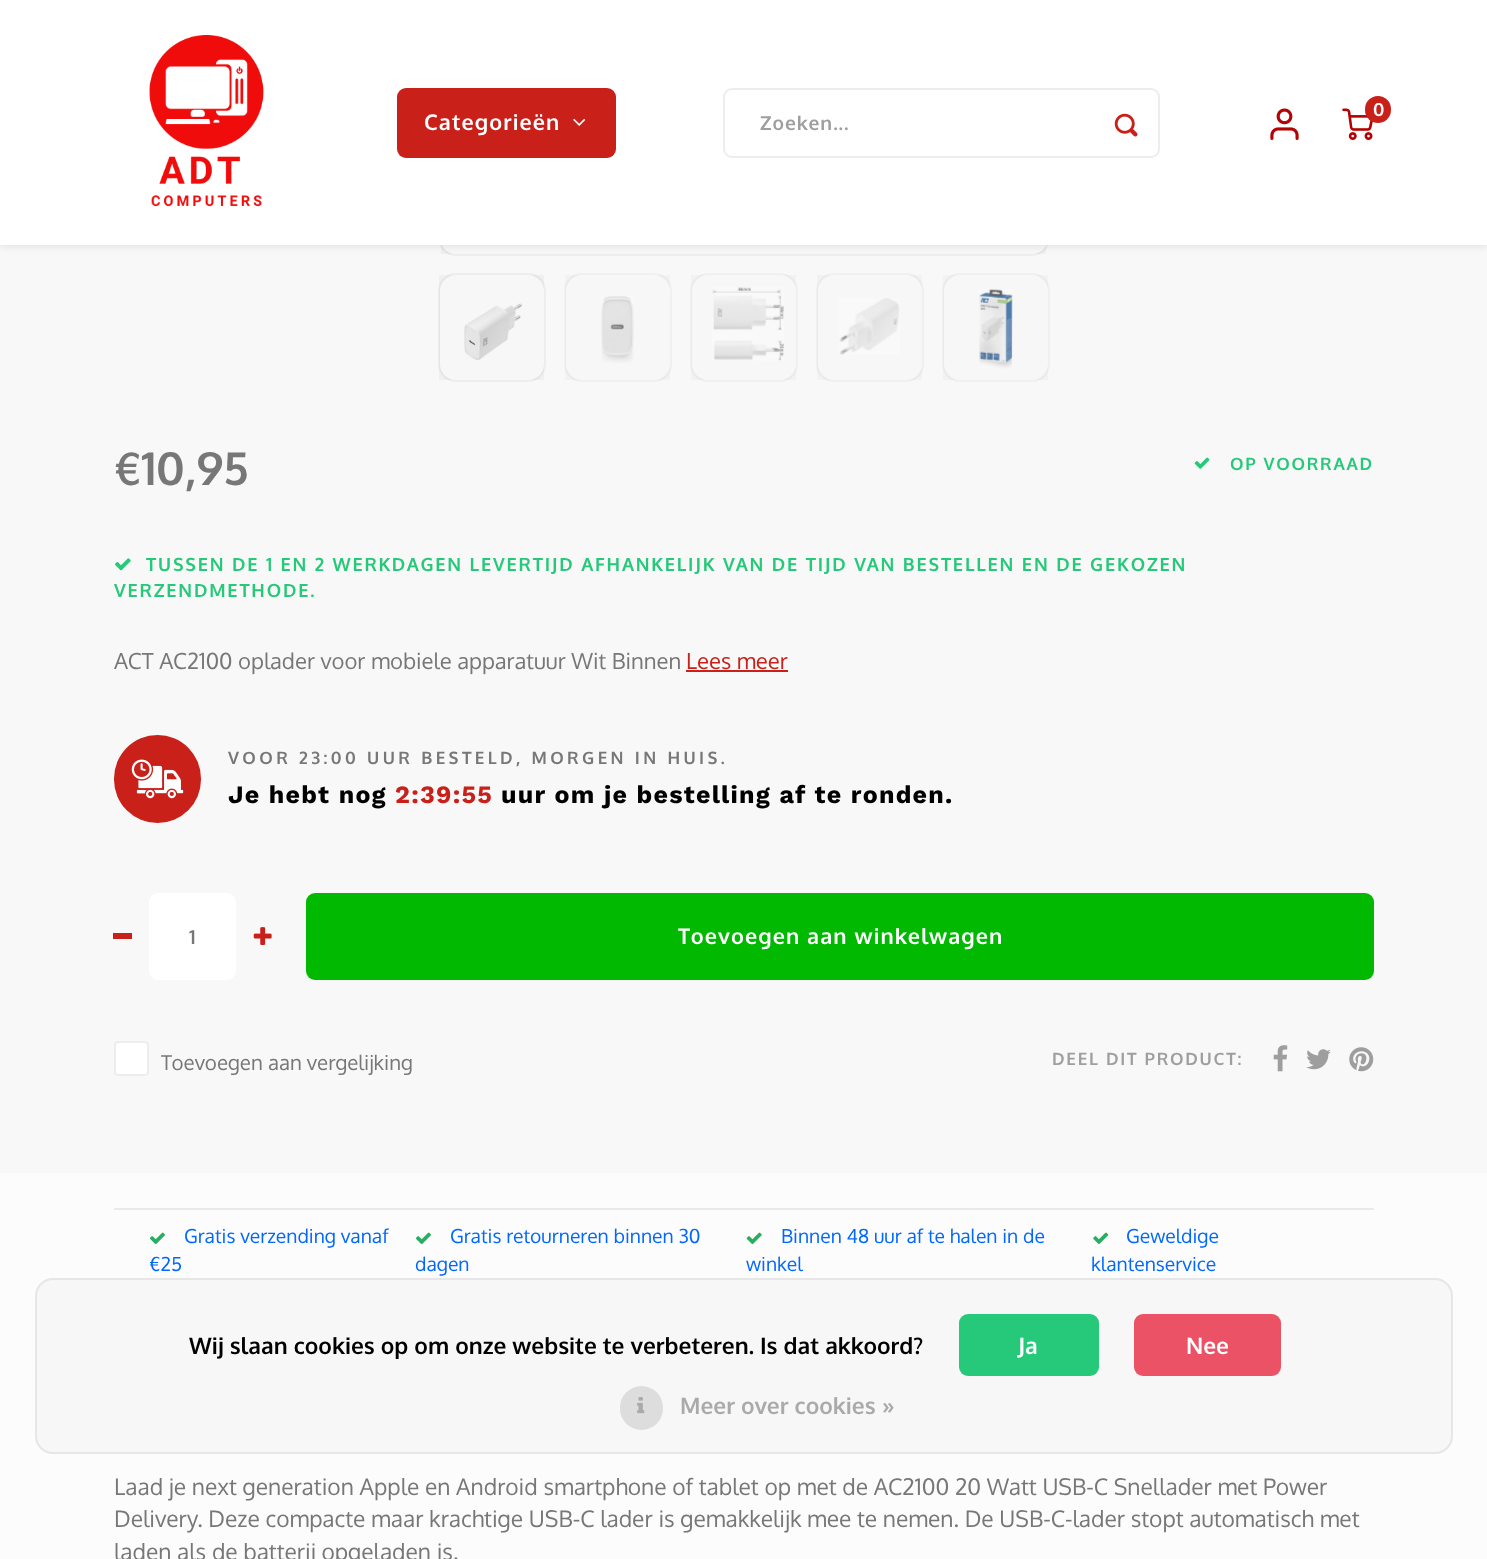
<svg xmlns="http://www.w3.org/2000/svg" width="1487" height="1559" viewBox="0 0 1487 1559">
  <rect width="100%" height="100%" fill="rgb(252,252,252)"/>
  <rect x="0" y="245" width="1487" height="928" fill="rgb(248,248,248)"/>
  <rect x="438" y="-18" width="612" height="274" rx="18" fill="rgb(255,255,255)"/>
  <rect x="439" y="-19" width="610" height="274" rx="17" fill="none" stroke="rgba(0,0,0,0.07)" stroke-width="2"/>
  <rect x="441" y="245" width="605" height="9" fill="rgba(0,0,0,0.03)"/>
  <rect x="0" y="2" width="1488" height="245" fill="rgba(0,0,0,0.08)" filter="blur(3.5px)"/>
  <rect x="0" y="0" width="1487" height="245" fill="rgb(255,255,255)"/>
  <image x="149" y="35" width="115" height="172" href="pic1.png"/>
  <image x="1270" y="108" width="29" height="32" href="pic2.png"/>
  <image x="1342" y="108" width="31" height="32" href="pic3.png"/>
  <rect x="1365" y="96" width="26" height="27" rx="13" fill="rgb(201,32,26)"/>
  <text x="1373" y="116" font-family="Oxygen" font-size="18" font-weight="bold" fill="rgb(255,255,255)">0</text>
  <rect x="397" y="88" width="219" height="70" rx="9" fill="rgb(201,32,26)"/>
  <text x="424" y="130" font-family="Oxygen" font-size="21.6" font-weight="bold" letter-spacing="1.1" fill="rgb(255,255,255)">Categorieën</text>
  <image x="573" y="118" width="13" height="8" href="pic4.png"/>
  <rect x="724" y="89" width="435" height="68" rx="8" fill="none" stroke="rgb(237,237,237)" stroke-width="2"/>
  <text x="760" y="130" font-family="Oxygen" font-size="19.3" font-weight="bold" letter-spacing="1" fill="rgb(158,158,158)">Zoeken...</text>
  <image x="1114" y="113" width="24" height="24" href="pic5.png"/>
  <rect x="438" y="273" width="108" height="109" rx="18" fill="rgb(255,255,255)"/>
  <rect x="439" y="274" width="106" height="107" rx="17" fill="none" stroke="rgba(0,0,0,0.07)" stroke-width="2"/>
  <image x="464" y="303" width="58" height="57" href="pic6.png"/>
  <rect x="439" y="275" width="105" height="105" fill="rgba(0,0,0,0.03)"/>
  <rect x="565" y="274" width="106" height="107" rx="17" fill="rgb(253,253,253)" stroke="rgb(240,240,240)" stroke-width="2"/>
  <image x="601" y="296" width="33" height="67" href="pic7.png"/>
  <rect x="565" y="275" width="105" height="105" fill="rgba(74,74,74,0.03)"/>
  <rect x="691" y="274" width="106" height="107" rx="17" fill="rgb(253,253,253)" stroke="rgb(240,240,240)" stroke-width="2"/>
  <image x="712" y="287" width="72" height="74" href="pic8.png"/>
  <rect x="691" y="275" width="105" height="105" fill="rgba(74,74,74,0.03)"/>
  <rect x="817" y="274" width="106" height="107" rx="17" fill="rgb(253,253,253)" stroke="rgb(240,240,240)" stroke-width="2"/>
  <image x="839" y="298" width="61" height="57" href="pic9.png"/>
  <rect x="817" y="275" width="105" height="105" fill="rgba(74,74,74,0.03)"/>
  <rect x="943" y="274" width="106" height="107" rx="17" fill="rgb(253,253,253)" stroke="rgb(240,240,240)" stroke-width="2"/>
  <image x="979" y="289" width="34" height="80" href="pic10.png"/>
  <rect x="943" y="275" width="105" height="105" fill="rgba(74,74,74,0.03)"/>
  <text x="114" y="485" font-family="Oxygen" font-size="45.5" font-weight="bold" fill="rgb(119,119,119)">€10,95</text>
  <image x="1194" y="457" width="16" height="12" href="pic11.png"/>
  <text x="1230" y="470" font-family="Oxygen" font-size="17.05" font-weight="bold" letter-spacing="1.75" fill="rgb(38,200,121)">OP VOORRAAD</text>
  <image x="115" y="558" width="16" height="13" href="pic12.png"/>
  <g font-family="Oxygen" font-size="18.2" font-weight="bold" letter-spacing="1.82" fill="rgb(38,200,121)">
    <text x="146" y="571">TUSSEN DE 1 EN 2 WERKDAGEN LEVERTIJD AFHANKELIJK VAN DE TIJD VAN BESTELLEN EN DE GEKOZEN</text>
    <text x="114" y="597">VERZENDMETHODE.</text>
  </g>
  <text x="114" y="669" font-family="Oxygen" font-size="22.1" fill="rgb(119,119,119)">ACT AC2100 oplader voor mobiele apparatuur Wit Binnen</text>
  <text x="686" y="669" font-family="Oxygen" font-size="22.1" fill="rgb(201,32,26)">Lees meer</text>
  <rect x="686" y="670" width="102" height="2" fill="rgb(201,32,26)"/>
  <rect x="114" y="735" width="87" height="88" rx="43.5" fill="rgb(201,32,26)"/>
  <image x="131" y="759" width="53" height="40" href="pic13.png"/>
  <text x="228" y="764" font-family="Oxygen" font-size="17.05" font-weight="bold" letter-spacing="3.4" fill="rgb(119,119,119)">VOOR 23:00 UUR BESTELD, MORGEN IN HUIS.</text>
  <text x="228" y="803" font-family="Work Sans" font-size="25" font-weight="bold" letter-spacing="1.25" fill="rgb(0,0,0)">Je hebt nog</text>
  <text x="395" y="803" font-family="Work Sans" font-size="25" font-weight="bold" letter-spacing="1.25" fill="rgb(201,32,26)">2:39:55</text>
  <text x="501" y="803" font-family="Work Sans" font-size="25" font-weight="bold" letter-spacing="1.25" fill="rgb(0,0,0)">uur om je bestelling af te ronden.</text>
  <rect x="113" y="933" width="19" height="6" fill="rgb(201,32,26)"/>
  <rect x="149" y="893" width="87" height="87" rx="9" fill="rgb(255,255,255)"/>
  <text x="189" y="944" font-family="Oxygen" font-size="19.3" font-weight="bold" letter-spacing="1" fill="rgb(119,119,119)">1</text>
  <image x="253" y="927" width="19" height="18" href="pic14.png"/>
  <rect x="306" y="893" width="1068" height="87" rx="9" fill="rgb(0,185,0)"/>
  <text x="678" y="944" font-family="Oxygen" font-size="21.6" font-weight="bold" letter-spacing="1.1" fill="rgb(255,255,255)">Toevoegen aan winkelwagen</text>
  <rect x="115" y="1042" width="33" height="33" rx="3" fill="rgb(255,255,255)" stroke="rgb(237,237,237)" stroke-width="2"/>
  <text x="161" y="1070" font-family="Oxygen" font-size="20.5" fill="rgb(119,119,119)">Toevoegen aan vergelijking</text>
  <text x="1052" y="1065" font-family="Oxygen" font-size="17.05" font-weight="bold" letter-spacing="1.75" fill="rgb(158,158,158)">DEEL DIT PRODUCT:</text>
  <image x="1273" y="1045" width="15" height="27" href="pic15.png"/>
  <image x="1306" y="1049" width="25" height="21" href="pic16.png"/>
  <image x="1349" y="1047" width="25" height="25" href="pic17.png"/>
  <rect x="114" y="1208" width="1260" height="2" fill="rgb(234,234,234)"/>
  <image x="150" y="1232" width="15" height="13" href="pic18.png"/>
  <g font-family="Oxygen" font-size="19.3" fill="rgb(0,104,255)">
    <text x="184" y="1243">Gratis verzending vanaf</text>
    <text x="149" y="1271">€25</text>
  </g>
  <image x="416" y="1232" width="15" height="13" href="pic18.png"/>
  <g font-family="Oxygen" font-size="19.3" fill="rgb(0,104,255)">
    <text x="450" y="1243">Gratis retourneren binnen 30</text>
    <text x="415" y="1271">dagen</text>
  </g>
  <image x="746" y="1232" width="16" height="13" href="pic19.png"/>
  <g font-family="Oxygen" font-size="19.3" fill="rgb(0,104,255)">
    <text x="781" y="1243">Binnen 48 uur af te halen in de</text>
    <text x="746" y="1271">winkel</text>
  </g>
  <image x="1093" y="1232" width="16" height="12" href="pic20.png"/>
  <g font-family="Oxygen" font-size="19.3" fill="rgb(0,104,255)">
    <text x="1126" y="1243">Geweldige</text>
    <text x="1091" y="1271">klantenservice</text>
  </g>
  <g font-family="Oxygen" font-size="22.75" fill="rgb(119,119,119)">
    <text>
      <tspan x="114" y="1495">Laad je next generation Apple en Android smartphone of tablet op met de AC2100 20 Watt USB-C Snellader met Power</tspan>
      <tspan x="114" y="1527">Delivery. Deze compacte maar krachtige USB-C lader is gemakkelijk mee te nemen. De USB-C-lader stopt automatisch met</tspan>
      <tspan x="114" y="1560">laden als de batterij opgeladen is.</tspan>
    </text>
  </g>
  <rect x="36" y="1279" width="1416" height="174" rx="17" fill="rgb(247,247,247)" stroke="rgb(230,230,230)" stroke-width="2"/>
  <text x="189" y="1354" font-family="Oxygen" font-size="22.75" font-weight="bold" fill="rgb(0,0,0)">Wij slaan cookies op om onze website te verbeteren. Is dat akkoord?</text>
  <rect x="959" y="1314" width="140" height="62" rx="9" fill="rgb(38,200,121)"/>
  <text x="1018" y="1354" font-family="Oxygen" font-size="22.75" font-weight="bold" fill="rgb(255,255,255)">Ja</text>
  <rect x="1134" y="1314" width="147" height="62" rx="9" fill="rgb(235,82,101)"/>
  <text x="1186" y="1354" font-family="Oxygen" font-size="22.75" font-weight="bold" fill="rgb(255,255,255)">Nee</text>
  <rect x="620" y="1386" width="43" height="44" rx="21.5" fill="rgb(221,221,221)"/>
  <image x="637" y="1397" width="8" height="17" href="pic21.png"/>
  <text x="680" y="1414" font-family="Oxygen" font-size="22.75" font-weight="bold" fill="rgb(170,170,170)">Meer over cookies »</text>
</svg>
